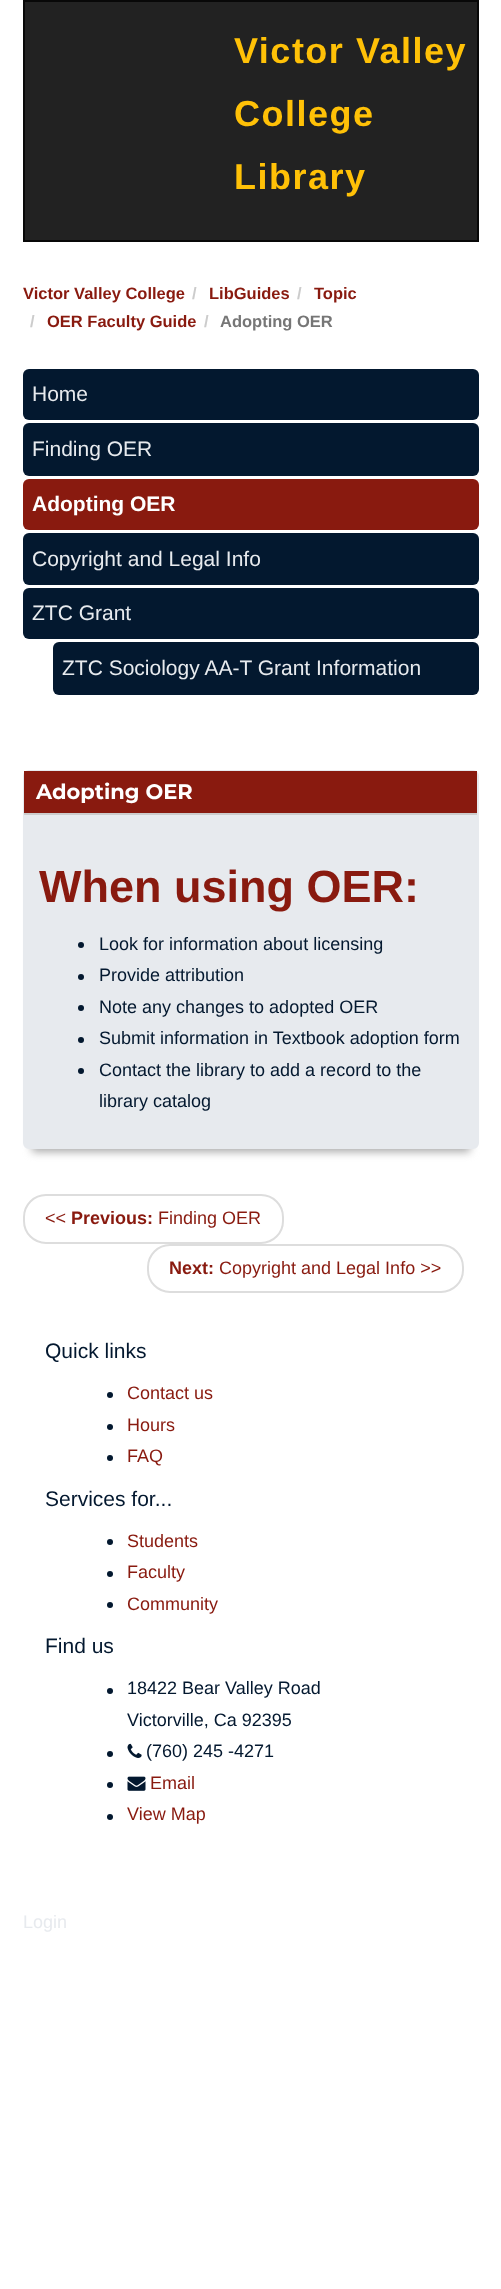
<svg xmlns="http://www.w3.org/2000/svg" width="501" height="2289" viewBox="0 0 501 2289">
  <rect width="100%" height="100%" fill="rgb(255,255,255)"/>
  <rect x="24" y="1" width="454" height="240" fill="rgb(34,34,34)" stroke="rgb(8,8,8)" stroke-width="2"/>
  <g font-family="Liberation Sans" font-size="36" font-weight="bold" letter-spacing="1.5" fill="rgb(255,193,7)">
    <text>
      <tspan x="234" y="63">Victor Valley</tspan>
      <tspan x="234" y="126">College</tspan>
      <tspan x="234" y="189">Library</tspan>
    </text>
  </g>
  <text x="23" y="299" font-family="Liberation Sans" font-size="16.5" font-weight="bold" fill="rgb(137,26,15)">Victor Valley College</text>
  <text x="192" y="299" font-family="Liberation Sans" font-size="16.5" font-weight="bold" fill="rgb(204,204,204)">/</text>
  <text x="209" y="299" font-family="Liberation Sans" font-size="16.5" font-weight="bold" fill="rgb(137,26,15)">LibGuides</text>
  <text x="297" y="299" font-family="Liberation Sans" font-size="16.5" font-weight="bold" fill="rgb(204,204,204)">/</text>
  <text x="314" y="299" font-family="Liberation Sans" font-size="16.5" font-weight="bold" fill="rgb(137,26,15)">Topic</text>
  <text x="30" y="327" font-family="Liberation Sans" font-size="16.5" font-weight="bold" fill="rgb(204,204,204)">/</text>
  <text x="47" y="327" font-family="Liberation Sans" font-size="16.5" font-weight="bold" fill="rgb(137,26,15)">OER Faculty Guide</text>
  <text x="204" y="327" font-family="Liberation Sans" font-size="16.5" font-weight="bold" fill="rgb(204,204,204)">/</text>
  <text x="220" y="327" font-family="Liberation Sans" font-size="16.5" font-weight="bold" fill="rgb(118,118,118)">Adopting OER</text>
  <rect x="23" y="369" width="456" height="51" rx="6" fill="rgb(3,24,47)"/>
  <text x="32" y="401" font-family="Liberation Sans" font-size="21" fill="rgb(231,234,238)">Home</text>
  <rect x="23" y="423" width="456" height="53" rx="6" fill="rgb(3,24,47)"/>
  <text x="32" y="456" font-family="Liberation Sans" font-size="21" fill="rgb(231,234,238)">Finding OER</text>
  <rect x="23" y="479" width="456" height="51" rx="6" fill="rgb(137,26,15)"/>
  <text x="32" y="511" font-family="Liberation Sans" font-size="21" font-weight="bold" fill="rgb(255,255,255)">Adopting OER</text>
  <rect x="23" y="533" width="456" height="52" rx="6" fill="rgb(3,24,47)"/>
  <text x="32" y="566" font-family="Liberation Sans" font-size="21" fill="rgb(231,234,238)">Copyright and Legal Info</text>
  <rect x="23" y="588" width="456" height="51" rx="6" fill="rgb(3,24,47)"/>
  <text x="32" y="620" font-family="Liberation Sans" font-size="21" fill="rgb(231,234,238)">ZTC Grant</text>
  <rect x="53" y="642" width="426" height="53" rx="6" fill="rgb(3,24,47)"/>
  <text x="62" y="675" font-family="Liberation Sans" font-size="21" fill="rgb(231,234,238)">ZTC Sociology AA-T Grant Information</text>
  <rect x="32" y="791" width="438" height="361" fill="rgb(170,170,170)" filter="blur(4.5px)"/>
  <rect x="24" y="771" width="454" height="377" rx="5" fill="rgb(231,234,238)" stroke="rgb(231,234,238)" stroke-width="2"/>
  <rect x="24" y="771" width="453" height="42" fill="rgb(137,26,15)"/>
  <rect x="24" y="813" width="453" height="2" fill="rgb(204,204,204)"/>
  <text x="36" y="799" font-family="Montserrat" font-size="21" font-weight="bold" fill="rgb(255,255,255)">Adopting OER</text>
  <text x="39" y="902" font-family="Liberation Sans" font-size="45" font-weight="bold" fill="rgb(137,26,15)">When using OER:</text>
  <circle cx="81" cy="945" r="3" fill="rgb(3,24,47)"/>
  <text x="99" y="950" font-family="Liberation Sans" font-size="18" fill="rgb(3,24,47)">Look for information about licensing</text>
  <circle cx="81" cy="977" r="3" fill="rgb(3,24,47)"/>
  <text x="99" y="981" font-family="Liberation Sans" font-size="18" fill="rgb(3,24,47)">Provide attribution</text>
  <circle cx="81" cy="1008" r="3" fill="rgb(3,24,47)"/>
  <text x="99" y="1013" font-family="Liberation Sans" font-size="18" fill="rgb(3,24,47)">Note any changes to adopted OER</text>
  <circle cx="81" cy="1040" r="3" fill="rgb(3,24,47)"/>
  <text x="99" y="1044" font-family="Liberation Sans" font-size="18" fill="rgb(3,24,47)">Submit information in Textbook adoption form</text>
  <circle cx="81" cy="1071" r="3" fill="rgb(3,24,47)"/>
  <g font-family="Liberation Sans" font-size="18" fill="rgb(3,24,47)">
    <text>
      <tspan x="99" y="1076">Contact the library to add a record to the</tspan>
      <tspan x="99" y="1107">library catalog</tspan>
    </text>
  </g>
  <rect x="24" y="1195" width="259" height="48" rx="22" fill="none" stroke="rgb(221,221,221)" stroke-width="2"/>
  <text x="45" y="1224" font-family="Liberation Sans" font-size="18" fill="rgb(137,26,15)">&lt;&lt;</text>
  <text x="71" y="1224" font-family="Liberation Sans" font-size="18" font-weight="bold" fill="rgb(137,26,15)">Previous:</text>
  <text x="158" y="1224" font-family="Liberation Sans" font-size="18" fill="rgb(137,26,15)">Finding OER</text>
  <rect x="148" y="1245" width="315" height="47" rx="22" fill="none" stroke="rgb(221,221,221)" stroke-width="2"/>
  <text x="169" y="1274" font-family="Liberation Sans" font-size="18" font-weight="bold" fill="rgb(137,26,15)">Next:</text>
  <text x="219" y="1274" font-family="Liberation Sans" font-size="18" fill="rgb(137,26,15)">Copyright and Legal Info &gt;&gt;</text>
  <text x="45" y="1358" font-family="Liberation Sans" font-size="21" fill="rgb(3,24,47)">Quick links</text>
  <circle cx="110" cy="1395" r="3" fill="rgb(3,24,47)"/>
  <text x="127" y="1399" font-family="Liberation Sans" font-size="18" fill="rgb(137,26,15)">Contact us</text>
  <circle cx="110" cy="1427" r="3" fill="rgb(3,24,47)"/>
  <text x="127" y="1431" font-family="Liberation Sans" font-size="18" fill="rgb(137,26,15)">Hours</text>
  <circle cx="110" cy="1458" r="3" fill="rgb(3,24,47)"/>
  <text x="127" y="1462" font-family="Liberation Sans" font-size="18" fill="rgb(137,26,15)">FAQ</text>
  <text x="45" y="1506" font-family="Liberation Sans" font-size="21" fill="rgb(3,24,47)">Services for...</text>
  <circle cx="110" cy="1542" r="3" fill="rgb(3,24,47)"/>
  <text x="127" y="1547" font-family="Liberation Sans" font-size="18" fill="rgb(137,26,15)">Students</text>
  <circle cx="110" cy="1574" r="3" fill="rgb(3,24,47)"/>
  <text x="127" y="1578" font-family="Liberation Sans" font-size="18" fill="rgb(137,26,15)">Faculty</text>
  <circle cx="110" cy="1605" r="3" fill="rgb(3,24,47)"/>
  <text x="127" y="1610" font-family="Liberation Sans" font-size="18" fill="rgb(137,26,15)">Community</text>
  <text x="45" y="1653" font-family="Liberation Sans" font-size="21" fill="rgb(3,24,47)">Find us</text>
  <circle cx="110" cy="1691" r="3" fill="rgb(3,24,47)"/>
  <g font-family="Liberation Sans" font-size="18" fill="rgb(3,24,47)">
    <text>
      <tspan x="127" y="1694">18422 Bear Valley Road</tspan>
      <tspan x="127" y="1726">Victorville, Ca 92395</tspan>
    </text>
  </g>
  <circle cx="110" cy="1754" r="3" fill="rgb(3,24,47)"/>
  <image x="127" y="1743" width="15" height="15" href="pic1.png"/>
  <text x="146" y="1757" font-family="Liberation Sans" font-size="18" fill="rgb(3,24,47)">(760) 245 -4271</text>
  <circle cx="110" cy="1785" r="3" fill="rgb(3,24,47)"/>
  <image x="127" y="1776" width="19" height="15" href="pic2.png"/>
  <text x="150" y="1789" font-family="Liberation Sans" font-size="18" fill="rgb(137,26,15)">Email</text>
  <circle cx="110" cy="1817" r="3" fill="rgb(3,24,47)"/>
  <text x="127" y="1820" font-family="Liberation Sans" font-size="18" fill="rgb(137,26,15)">View Map</text>
  <text x="23" y="1928" font-family="Liberation Sans" font-size="18" fill="rgb(231,234,238)">Login</text>
</svg>
